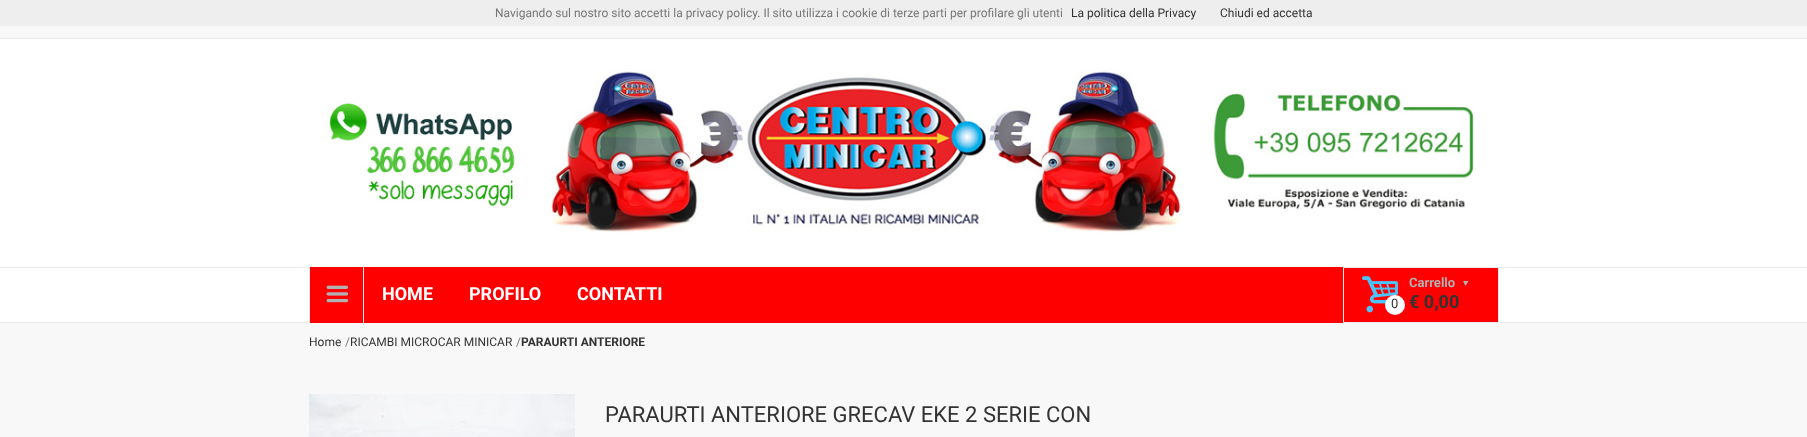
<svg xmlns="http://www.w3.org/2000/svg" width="1807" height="437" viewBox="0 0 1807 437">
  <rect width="100%" height="100%" fill="rgb(255,255,255)"/>
  <rect x="0" y="0" width="1807" height="26" fill="rgb(238,238,238)"/>
  <text x="495" y="17" font-family="Roboto" font-size="12" fill="rgb(119,119,119)">Navigando sul nostro sito accetti la privacy policy. Il sito utilizza i cookie di terze parti per profilare gli utenti</text>
  <g font-family="Roboto" font-size="12" fill="rgb(51,51,51)">
    <text x="1071" y="17">La politica della Privacy</text>
    <text x="1220" y="17">Chiudi ed accetta</text>
  </g>
  <rect x="0" y="26" width="1807" height="12" fill="rgb(248,248,248)"/>
  <rect x="0" y="38" width="1807" height="1" fill="rgb(234,234,234)"/>
  <image x="324" y="68" width="1150" height="166" href="pic1.png"/>
  <rect x="0" y="267" width="1807" height="1" fill="rgb(234,234,234)"/>
  <rect x="0" y="322" width="1807" height="1" fill="rgb(234,234,234)"/>
  <rect x="310" y="267" width="53" height="56" fill="rgb(255,0,0)"/>
  <rect x="363" y="267" width="1" height="56" fill="rgb(234,234,234)"/>
  <rect x="309" y="267" width="1" height="56" fill="rgb(234,234,234)"/>
  <image x="326" y="285" width="23" height="18" href="pic2.png"/>
  <rect x="364" y="267" width="979" height="56" fill="rgb(255,0,0)"/>
  <rect x="1343" y="267" width="1" height="56" fill="rgb(234,234,234)"/>
  <g font-family="Roboto" font-size="18" font-weight="bold" fill="rgb(255,255,255)">
    <text x="382" y="300">HOME</text>
    <text x="469" y="300">PROFILO</text>
    <text x="577" y="300">CONTATTI</text>
  </g>
  <rect x="1344" y="268" width="154" height="54" fill="rgb(255,0,0)"/>
  <rect x="1498" y="267" width="1" height="56" fill="rgb(234,234,234)"/>
  <image x="1362" y="276" width="36" height="37" href="pic3.png"/>
  <text x="1409" y="287" font-family="Roboto" font-size="13" font-weight="bold" fill="rgb(178,178,178)">Carrello</text>
  <path d="M1465.5 286L1463 281H1468.5Z" fill="rgb(178,178,178)"/>
  <circle cx="1395" cy="305" r="10" fill="rgb(255,255,255)"/>
  <text x="1391" y="308" font-family="Roboto" font-size="13" fill="rgb(51,51,51)">0</text>
  <text x="1409" y="308" font-family="Roboto" font-size="18" font-weight="bold" fill="rgb(51,51,51)">€ 0,00</text>
  <rect x="0" y="323" width="1807" height="114" fill="rgb(248,248,248)"/>
  <text x="309" y="346" font-family="Roboto" font-size="12" fill="rgb(51,51,51)">Home</text>
  <text x="345" y="346" font-family="Roboto" font-size="12" fill="rgb(119,119,119)">/</text>
  <text x="350" y="346" font-family="Roboto" font-size="12" fill="rgb(51,51,51)">RICAMBI MICROCAR MINICAR</text>
  <text x="516" y="346" font-family="Roboto" font-size="12" fill="rgb(119,119,119)">/</text>
  <text x="521" y="346" font-family="Roboto" font-size="12" font-weight="bold" fill="rgb(51,51,51)">PARAURTI ANTERIORE</text>
  <image x="309" y="394" width="266" height="43" href="pic4.png"/>
  <text x="605" y="422" font-family="Roboto" font-size="22" fill="rgb(51,51,51)">PARAURTI ANTERIORE GRECAV EKE 2 SERIE CON</text>
</svg>
